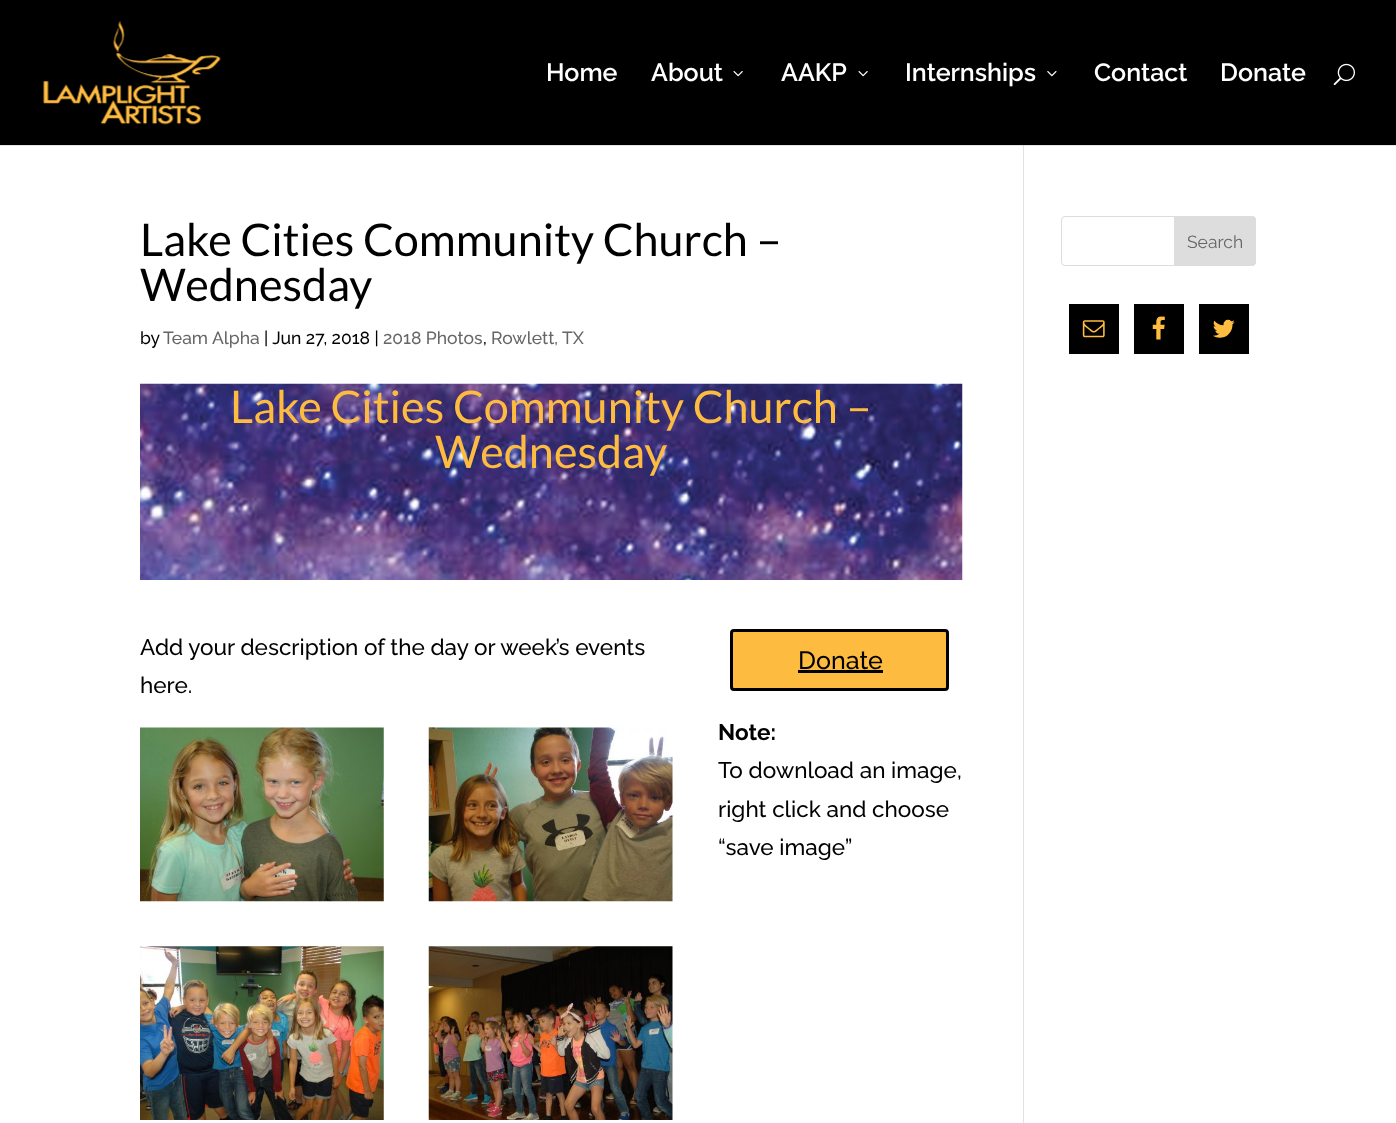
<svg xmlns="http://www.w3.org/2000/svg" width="1396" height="1123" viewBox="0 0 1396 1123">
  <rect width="100%" height="100%" fill="rgb(255,255,255)"/>
  <rect x="0" y="145" width="1396" height="1" fill="rgb(230,230,230)"/>
  <rect x="1023" y="144" width="1" height="979" fill="rgb(226,226,226)"/>
  <rect x="0" y="0" width="1396" height="145" fill="rgb(0,0,0)"/>
  <image x="43" y="21" width="178" height="104" href="pic1.png"/>
  <g font-family="'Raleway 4'" font-size="25" font-weight="100" fill="rgb(255,255,255)">
    <text x="546" y="81">Home</text>
    <text x="651" y="81">About</text>
  </g>
  <image x="733" y="71" width="10" height="6" href="pic2.png"/>
  <text x="781" y="81" font-family="'Raleway 4'" font-size="25" font-weight="100" fill="rgb(255,255,255)">AAKP</text>
  <image x="858" y="71" width="10" height="6" href="pic2.png"/>
  <text x="905" y="81" font-family="'Raleway 4'" font-size="25" font-weight="100" fill="rgb(255,255,255)">Internships</text>
  <image x="1047" y="71" width="10" height="6" href="pic3.png"/>
  <g font-family="'Raleway 4'" font-size="25" font-weight="100" fill="rgb(255,255,255)">
    <text x="1094" y="81">Contact</text>
    <text x="1220" y="81">Donate</text>
  </g>
  <image x="1333" y="63" width="22" height="23" href="pic4.png"/>
  <rect x="1023" y="145" width="1" height="1" fill="rgb(203,203,203)"/>
  <g font-family="Lato" font-size="45" fill="rgb(0,0,0)">
    <text>
      <tspan x="140" y="256">Lake Cities Community Church –</tspan>
      <tspan x="140" y="301">Wednesday</tspan>
    </text>
  </g>
  <text x="140" y="344" font-family="Raleway" font-size="17.5" font-weight="100" fill="rgb(0,0,0)">by</text>
  <text x="163" y="344" font-family="Raleway" font-size="17.5" font-weight="100" fill="rgb(102,102,102)">Team Alpha</text>
  <text x="264" y="344" font-family="Raleway" font-size="17.5" font-weight="100" fill="rgb(0,0,0)">| Jun 27, 2018 |</text>
  <text x="383" y="344" font-family="Raleway" font-size="17.5" font-weight="100" fill="rgb(102,102,102)">2018 Photos</text>
  <text x="483" y="344" font-family="Raleway" font-size="17.5" font-weight="100" fill="rgb(0,0,0)">,</text>
  <text x="491" y="344" font-family="Raleway" font-size="17.5" font-weight="100" fill="rgb(102,102,102)">Rowlett, TX</text>
  <image x="140" y="383" width="823" height="197" href="pic5.png"/>
  <g font-family="Lato" font-size="45" fill="rgb(253,187,64)">
    <text x="230" y="423">Lake Cities Community Church –</text>
    <text x="435" y="468">Wednesday</text>
  </g>
  <g font-family="Raleway" font-size="22.5" font-weight="100" fill="rgb(0,0,0)">
    <text>
      <tspan x="140" y="655">Add your description of the day or week’s events</tspan>
      <tspan x="140" y="693">here.</tspan>
    </text>
  </g>
  <image x="140" y="727" width="244" height="175" href="pic6.png"/>
  <image x="428" y="727" width="245" height="175" href="pic7.png"/>
  <image x="140" y="946" width="244" height="174" href="pic8.png"/>
  <image x="428" y="946" width="245" height="174" href="pic9.png"/>
  <rect x="731.5" y="630.5" width="216" height="59" rx="2.5" fill="rgb(253,187,64)" stroke="rgb(0,0,0)" stroke-width="3"/>
  <text x="798" y="669" font-family="Raleway" font-size="25" font-weight="100" fill="rgb(0,0,0)">Donate</text>
  <rect x="798" y="670" width="85" height="3" fill="rgb(0,0,0)"/>
  <text x="718" y="740" font-family="'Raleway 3'" font-size="22.5" font-weight="100" fill="rgb(0,0,0)">Note:</text>
  <g font-family="Raleway" font-size="22.5" font-weight="100" fill="rgb(0,0,0)">
    <text>
      <tspan x="718" y="778">To download an image,</tspan>
      <tspan x="718" y="817">right click and choose</tspan>
      <tspan x="718" y="855">“save image”</tspan>
    </text>
  </g>
  <rect x="1061.5" y="216.5" width="194" height="49" rx="3.5" fill="none" stroke="rgb(221,221,221)"/>
  <path d="M1174.5 216.5H1252C1254 216.5 1255.5 218 1255.5 220V262C1255.5 264 1254 265.5 1252 265.5H1174.5Z" fill="rgb(221,221,221)" stroke="rgb(221,221,221)"/>
  <text x="1187" y="248" font-family="'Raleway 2'" font-size="17.5" font-weight="100" fill="rgb(102,102,102)">Search</text>
  <rect x="1069" y="304" width="50" height="50" fill="rgb(0,0,0)"/>
  <image x="1082" y="320" width="23" height="18" href="pic10.png"/>
  <rect x="1134" y="304" width="50" height="50" fill="rgb(0,0,0)"/>
  <image x="1152" y="316" width="13" height="24" href="pic11.png"/>
  <rect x="1199" y="304" width="50" height="50" fill="rgb(0,0,0)"/>
  <image x="1213" y="319" width="22" height="19" href="pic12.png"/>
</svg>
